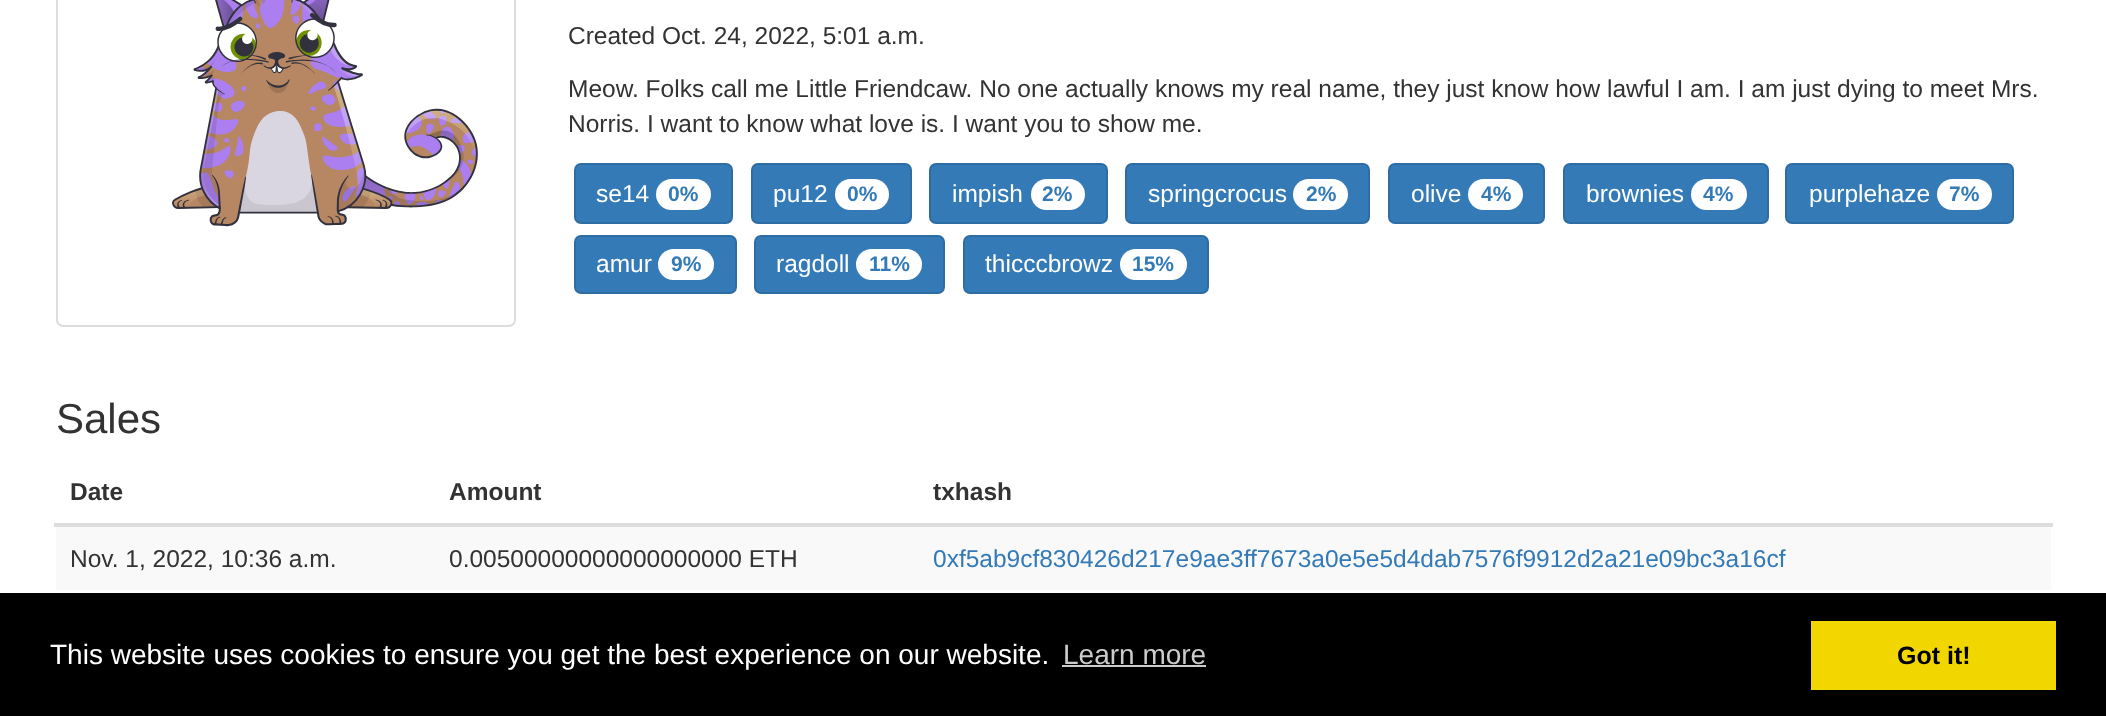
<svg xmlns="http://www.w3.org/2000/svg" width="2106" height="716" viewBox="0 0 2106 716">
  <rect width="100%" height="100%" fill="rgb(255,255,255)"/>
  <rect x="57" y="-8" width="458" height="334" rx="6" fill="none" stroke="rgb(221,221,221)" stroke-width="2"/>
  <image x="172" y="0" width="306" height="227" href="pic1.png"/>
  <g font-family="Liberation Sans" font-size="24.5" fill="rgb(51,51,51)">
    <text x="568" y="44">Created Oct. 24, 2022, 5:01 a.m.</text>
    <text>
      <tspan x="568" y="97">Meow. Folks call me Little Friendcaw. No one actually knows my real name, they just know how lawful I am. I am just dying to meet Mrs.</tspan>
      <tspan x="568" y="132">Norris. I want to know what love is. I want you to show me.</tspan>
    </text>
  </g>
  <rect x="575" y="164" width="157" height="59" rx="6" fill="rgb(51,122,183)" stroke="rgb(46,109,164)" stroke-width="2"/>
  <text x="596" y="202" font-family="Liberation Sans" font-size="24.5" fill="rgb(255,255,255)">se14</text>
  <rect x="656" y="179" width="55" height="31" rx="15.5" fill="rgb(255,255,255)"/>
  <text x="668" y="201" font-family="Liberation Sans" font-size="21" font-weight="bold" fill="rgb(51,122,183)">0%</text>
  <rect x="752" y="164" width="159" height="59" rx="6" fill="rgb(51,122,183)" stroke="rgb(46,109,164)" stroke-width="2"/>
  <text x="773" y="202" font-family="Liberation Sans" font-size="24.5" fill="rgb(255,255,255)">pu12</text>
  <rect x="835" y="179" width="54" height="31" rx="15.5" fill="rgb(255,255,255)"/>
  <text x="847" y="201" font-family="Liberation Sans" font-size="21" font-weight="bold" fill="rgb(51,122,183)">0%</text>
  <rect x="930" y="164" width="177" height="59" rx="6" fill="rgb(51,122,183)" stroke="rgb(46,109,164)" stroke-width="2"/>
  <text x="952" y="202" font-family="Liberation Sans" font-size="24.5" fill="rgb(255,255,255)">impish</text>
  <rect x="1031" y="179" width="54" height="31" rx="15.5" fill="rgb(255,255,255)"/>
  <text x="1042" y="201" font-family="Liberation Sans" font-size="21" font-weight="bold" fill="rgb(51,122,183)">2%</text>
  <rect x="1126" y="164" width="243" height="59" rx="6" fill="rgb(51,122,183)" stroke="rgb(46,109,164)" stroke-width="2"/>
  <text x="1148" y="202" font-family="Liberation Sans" font-size="24.5" fill="rgb(255,255,255)">springcrocus</text>
  <rect x="1293" y="179" width="55" height="31" rx="15.5" fill="rgb(255,255,255)"/>
  <text x="1306" y="201" font-family="Liberation Sans" font-size="21" font-weight="bold" fill="rgb(51,122,183)">2%</text>
  <rect x="1389" y="164" width="155" height="59" rx="6" fill="rgb(51,122,183)" stroke="rgb(46,109,164)" stroke-width="2"/>
  <text x="1411" y="202" font-family="Liberation Sans" font-size="24.5" fill="rgb(255,255,255)">olive</text>
  <rect x="1468" y="179" width="55" height="31" rx="15.5" fill="rgb(255,255,255)"/>
  <text x="1481" y="201" font-family="Liberation Sans" font-size="21" font-weight="bold" fill="rgb(51,122,183)">4%</text>
  <rect x="1564" y="164" width="204" height="59" rx="6" fill="rgb(51,122,183)" stroke="rgb(46,109,164)" stroke-width="2"/>
  <text x="1586" y="202" font-family="Liberation Sans" font-size="24.5" fill="rgb(255,255,255)">brownies</text>
  <rect x="1691" y="179" width="56" height="31" rx="15.5" fill="rgb(255,255,255)"/>
  <text x="1703" y="201" font-family="Liberation Sans" font-size="21" font-weight="bold" fill="rgb(51,122,183)">4%</text>
  <rect x="1786" y="164" width="227" height="59" rx="6" fill="rgb(51,122,183)" stroke="rgb(46,109,164)" stroke-width="2"/>
  <text x="1809" y="202" font-family="Liberation Sans" font-size="24.5" fill="rgb(255,255,255)">purplehaze</text>
  <rect x="1937" y="179" width="55" height="31" rx="15.5" fill="rgb(255,255,255)"/>
  <text x="1949" y="201" font-family="Liberation Sans" font-size="21" font-weight="bold" fill="rgb(51,122,183)">7%</text>
  <rect x="575" y="236" width="161" height="57" rx="6" fill="rgb(51,122,183)" stroke="rgb(46,109,164)" stroke-width="2"/>
  <text x="596" y="272" font-family="Liberation Sans" font-size="24.5" fill="rgb(255,255,255)">amur</text>
  <rect x="658" y="249" width="56" height="31" rx="15.5" fill="rgb(255,255,255)"/>
  <text x="671" y="271" font-family="Liberation Sans" font-size="21" font-weight="bold" fill="rgb(51,122,183)">9%</text>
  <rect x="755" y="236" width="189" height="57" rx="6" fill="rgb(51,122,183)" stroke="rgb(46,109,164)" stroke-width="2"/>
  <text x="776" y="272" font-family="Liberation Sans" font-size="24.5" fill="rgb(255,255,255)">ragdoll</text>
  <rect x="856" y="249" width="66" height="31" rx="15.5" fill="rgb(255,255,255)"/>
  <text x="869" y="271" font-family="Liberation Sans" font-size="21" font-weight="bold" fill="rgb(51,122,183)">11%</text>
  <rect x="964" y="236" width="244" height="57" rx="6" fill="rgb(51,122,183)" stroke="rgb(46,109,164)" stroke-width="2"/>
  <text x="985" y="272" font-family="Liberation Sans" font-size="24.5" fill="rgb(255,255,255)">thicccbrowz</text>
  <rect x="1120" y="249" width="67" height="31" rx="15.5" fill="rgb(255,255,255)"/>
  <text x="1132" y="271" font-family="Liberation Sans" font-size="21" font-weight="bold" fill="rgb(51,122,183)">15%</text>
  <text x="56" y="433" font-family="Liberation Sans" font-size="42" fill="rgb(51,51,51)">Sales</text>
  <g font-family="Liberation Sans" font-size="24.5" font-weight="bold" fill="rgb(51,51,51)">
    <text x="70" y="500">Date</text>
    <text x="449" y="500">Amount</text>
  </g>
  <rect x="54" y="523" width="1999" height="4" fill="rgb(221,221,221)"/>
  <text x="933" y="500" font-family="Liberation Sans" font-size="24.5" font-weight="bold" fill="rgb(51,51,51)">txhash</text>
  <rect x="56" y="527" width="1995" height="63" fill="rgb(249,249,249)"/>
  <g font-family="Liberation Sans" font-size="24.5" fill="rgb(51,51,51)">
    <text x="70" y="567">Nov. 1, 2022, 10:36 a.m.</text>
    <text x="449" y="567">0.00500000000000000000 ETH</text>
  </g>
  <text x="933" y="567" font-family="Liberation Sans" font-size="24.5" fill="rgb(51,122,183)">0xf5ab9cf830426d217e9ae3ff7673a0e5e5d4dab7576f9912d2a21e09bc3a16cf</text>
  <rect x="0" y="593" width="2106" height="123" fill="rgb(0,0,0)"/>
  <text x="50" y="664" font-family="Liberation Sans" font-size="28" fill="rgb(255,255,255)">This website uses cookies to ensure you get the best experience on our website.</text>
  <text x="1063" y="664" font-family="Liberation Sans" font-size="28" fill="rgb(204,204,204)">Learn more</text>
  <rect x="1062" y="665" width="144" height="2" fill="rgb(204,204,204)"/>
  <rect x="1811" y="621" width="245" height="69" fill="rgb(241,214,0)"/>
  <text x="1897" y="664" font-family="Liberation Sans" font-size="25" font-weight="bold" fill="rgb(0,0,0)">Got it!</text>
</svg>
